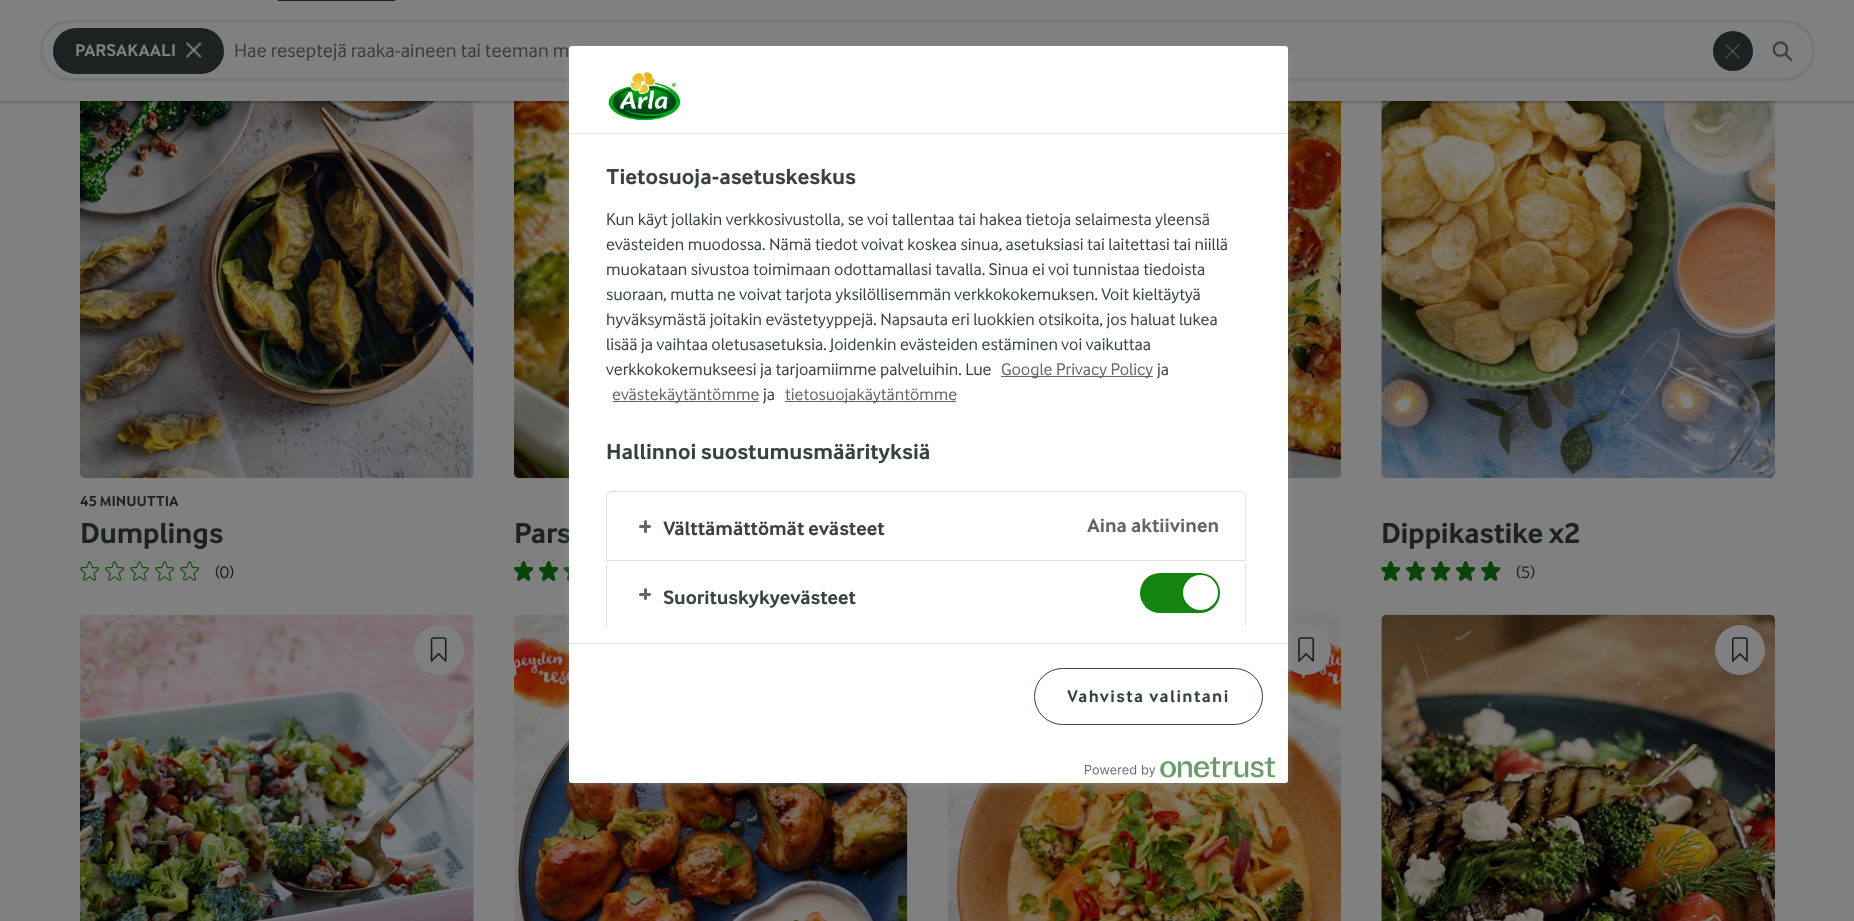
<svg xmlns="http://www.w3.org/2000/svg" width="1854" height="921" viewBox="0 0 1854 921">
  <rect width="100%" height="100%" fill="rgb(128,128,128)"/>
  <image x="1288" y="101" width="53" height="378" href="pic4.png"/>
  <image x="80" y="101" width="394" height="378" href="pic5.png"/>
  <image x="514" y="101" width="55" height="378" href="pic7.png"/>
  <image x="1381" y="101" width="394" height="378" href="pic10.png"/>
  <rect x="0" y="1" width="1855" height="102" fill="rgba(0,0,0,0.2)" filter="blur(1px)"/>
  <rect x="0" y="0" width="1854" height="101" fill="rgb(128,128,128)"/>
  <rect x="278" y="0" width="117" height="1" fill="rgb(28,33,33)"/>
  <rect x="41.5" y="21.5" width="1772" height="58" rx="28.5" fill="none" stroke="rgb(118,118,118)" stroke-width="3"/>
  <rect x="54.5" y="29.5" width="168" height="43" rx="21.5" fill="rgb(28,33,33)" stroke="rgb(28,33,33)" stroke-width="3"/>
  <text x="75" y="56" font-family="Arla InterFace" font-size="17.5" font-weight="bold" fill="rgb(128,128,128)">PARSAKAALI</text>
  <image x="186" y="42" width="16" height="16" href="pic1.png"/>
  <text x="234" y="57" font-family="Arla InterFace" font-size="20" fill="rgb(59,59,59)">Hae reseptejä raaka-aineen tai teeman m</text>
  <image x="1772" y="41" width="21" height="21" href="pic2.png"/>
  <circle cx="1733" cy="51" r="20" fill="rgb(28,33,33)"/>
  <image x="1725" y="43" width="15" height="16" href="pic3.png"/>
  <text x="80" y="506" font-family="Arla InterFace" font-size="15" font-weight="bold" fill="rgb(28,33,33)">45 MINUUTTIA</text>
  <text x="80" y="543" font-family="Arla InterFace" font-size="30" font-weight="bold" letter-spacing="-0.25" fill="rgb(28,33,33)">Dumplings</text>
  <image x="80" y="560" width="119" height="21" href="pic6.png"/>
  <text x="215" y="578" font-family="Arla InterFace" font-size="17.5" fill="rgb(28,33,33)">(0)</text>
  <text x="514" y="543" font-family="Arla InterFace" font-size="30" font-weight="bold" letter-spacing="-0.25" fill="rgb(28,33,33)">Pars</text>
  <image x="514" y="560" width="55" height="21" href="pic8.png"/>
  <image x="514" y="560" width="55" height="21" href="pic9.png"/>
  <text x="1381" y="543" font-family="Arla InterFace" font-size="30" font-weight="bold" letter-spacing="-0.25" fill="rgb(28,33,33)">Dippikastike x2</text>
  <image x="1381" y="560" width="126" height="21" href="pic11.png"/>
  <image x="1381" y="560" width="126" height="21" href="pic12.png"/>
  <text x="1516" y="578" font-family="Arla InterFace" font-size="17.5" fill="rgb(28,33,33)">(5)</text>
  <image x="80" y="614" width="394" height="307" href="pic13.png"/>
  <circle cx="439" cy="650" r="25" fill="rgb(128,128,128)"/>
  <image x="430" y="637" width="17" height="25" href="pic14.png"/>
  <image x="514" y="614" width="394" height="307" href="pic15.png"/>
  <image x="947" y="615" width="394" height="306" href="pic16.png"/>
  <circle cx="1306" cy="650" r="25" fill="rgb(128,128,128)"/>
  <image x="1298" y="637" width="17" height="25" href="pic17.png"/>
  <image x="1381" y="614" width="394" height="307" href="pic18.png"/>
  <circle cx="1740" cy="650" r="25" fill="rgb(128,128,128)"/>
  <image x="1731" y="637" width="17" height="25" href="pic19.png"/>
  <rect x="573" y="53" width="711" height="728" fill="rgb(153,153,153)" filter="blur(6px)"/>
  <rect x="569" y="46" width="719" height="737" rx="3" fill="rgb(255,255,255)"/>
  <rect x="569" y="133" width="719" height="1" fill="rgb(223,223,223)"/>
  <image x="608" y="72" width="73" height="49" href="pic20.png"/>
  <text x="606" y="184" font-family="Arla InterFace" font-size="22.5" font-weight="bold" fill="rgb(56,66,65)">Tietosuoja-asetuskeskus</text>
  <g font-family="Arla InterFace" font-size="17.5" fill="rgb(56,66,65)">
    <text>
      <tspan x="606" y="225">Kun käyt jollakin verkkosivustolla, se voi tallentaa tai hakea tietoja selaimesta yleensä</tspan>
      <tspan x="606" y="250">evästeiden muodossa. Nämä tiedot voivat koskea sinua, asetuksiasi tai laitettasi tai niillä</tspan>
      <tspan x="606" y="275">muokataan sivustoa toimimaan odottamallasi tavalla. Sinua ei voi tunnistaa tiedoista</tspan>
      <tspan x="606" y="300">suoraan, mutta ne voivat tarjota yksilöllisemmän verkkokokemuksen. Voit kieltäytyä</tspan>
      <tspan x="606" y="325">hyväksymästä joitakin evästetyyppejä. Napsauta eri luokkien otsikoita, jos haluat lukea</tspan>
      <tspan x="606" y="350">lisää ja vaihtaa oletusasetuksia. Joidenkin evästeiden estäminen voi vaikuttaa</tspan>
      <tspan x="606" y="375">verkkokokemukseesi ja tarjoamiimme palveluihin. Lue</tspan>
    </text>
  </g>
  <rect x="1001" y="376" width="152" height="1" fill="rgb(101,101,101)"/>
  <text x="1001" y="375" font-family="Arla InterFace" font-size="17.5" fill="rgb(101,101,101)">Google Privacy Policy</text>
  <text x="1157" y="375" font-family="Arla InterFace" font-size="17.5" fill="rgb(56,66,65)">ja</text>
  <rect x="613" y="401" width="146" height="1" fill="rgb(101,101,101)"/>
  <text x="612" y="400" font-family="Arla InterFace" font-size="17.5" fill="rgb(101,101,101)">evästekäytäntömme</text>
  <text x="763" y="400" font-family="Arla InterFace" font-size="17.5" fill="rgb(56,66,65)">ja</text>
  <rect x="785" y="401" width="171" height="1" fill="rgb(101,101,101)"/>
  <text x="785" y="400" font-family="Arla InterFace" font-size="17.5" fill="rgb(101,101,101)">tietosuojakäytäntömme</text>
  <text x="606" y="459" font-family="Arla InterFace" font-size="22.5" font-weight="bold" fill="rgb(56,66,65)">Hallinnoi suostumusmäärityksiä</text>
  <path d="M611 491.5H1241C1243.5 491.5 1245.5 493.5 1245.5 496V560.5H606.5V496C606.5 493.5 608.5 491.5 611 491.5Z" fill="none" stroke="rgb(223,223,223)"/>
  <rect x="644" y="520" width="3" height="13" rx="1.5" fill="rgb(102,102,102)"/>
  <rect x="639" y="525" width="12" height="3" rx="1.5" fill="rgb(102,102,102)"/>
  <text x="663" y="535" font-family="Arla InterFace" font-size="20" font-weight="bold" fill="rgb(56,66,65)">Välttämättömät evästeet</text>
  <text x="1087" y="532" font-family="Arla InterFace" font-size="20" font-weight="bold" fill="rgb(101,101,101)">Aina aktiivinen</text>
  <rect x="1245" y="563" width="1" height="63" fill="rgb(223,223,223)"/>
  <rect x="606" y="563" width="1" height="63" fill="rgb(223,223,223)"/>
  <rect x="644" y="588" width="3" height="12" rx="1.5" fill="rgb(102,102,102)"/>
  <rect x="639" y="593" width="12" height="3" rx="1.5" fill="rgb(102,102,102)"/>
  <text x="663" y="604" font-family="Arla InterFace" font-size="20" font-weight="bold" fill="rgb(56,66,65)">Suorituskykyevästeet</text>
  <rect x="1140" y="573" width="80" height="40" rx="20" fill="rgb(20,131,15)"/>
  <circle cx="1200.5" cy="592.5" r="17.5" fill="rgb(255,255,255)"/>
  <rect x="569" y="643" width="719" height="1" fill="rgb(223,223,223)"/>
  <rect x="1034.5" y="668.5" width="228" height="56" rx="28" fill="none" stroke="rgb(56,66,65)"/>
  <text x="1067" y="702" font-family="Arla InterFace" font-size="17.5" font-weight="bold" letter-spacing="1.4" fill="rgb(56,66,65)">Vahvista valintani</text>
  <path d="M569 745H1288V780C1288 781.5 1286.5 783 1285 783H572C570.5 783 569 781.5 569 780Z" fill="rgb(255,255,255)"/>
  <image x="1085" y="757" width="190" height="21" href="pic21.png"/>
</svg>
